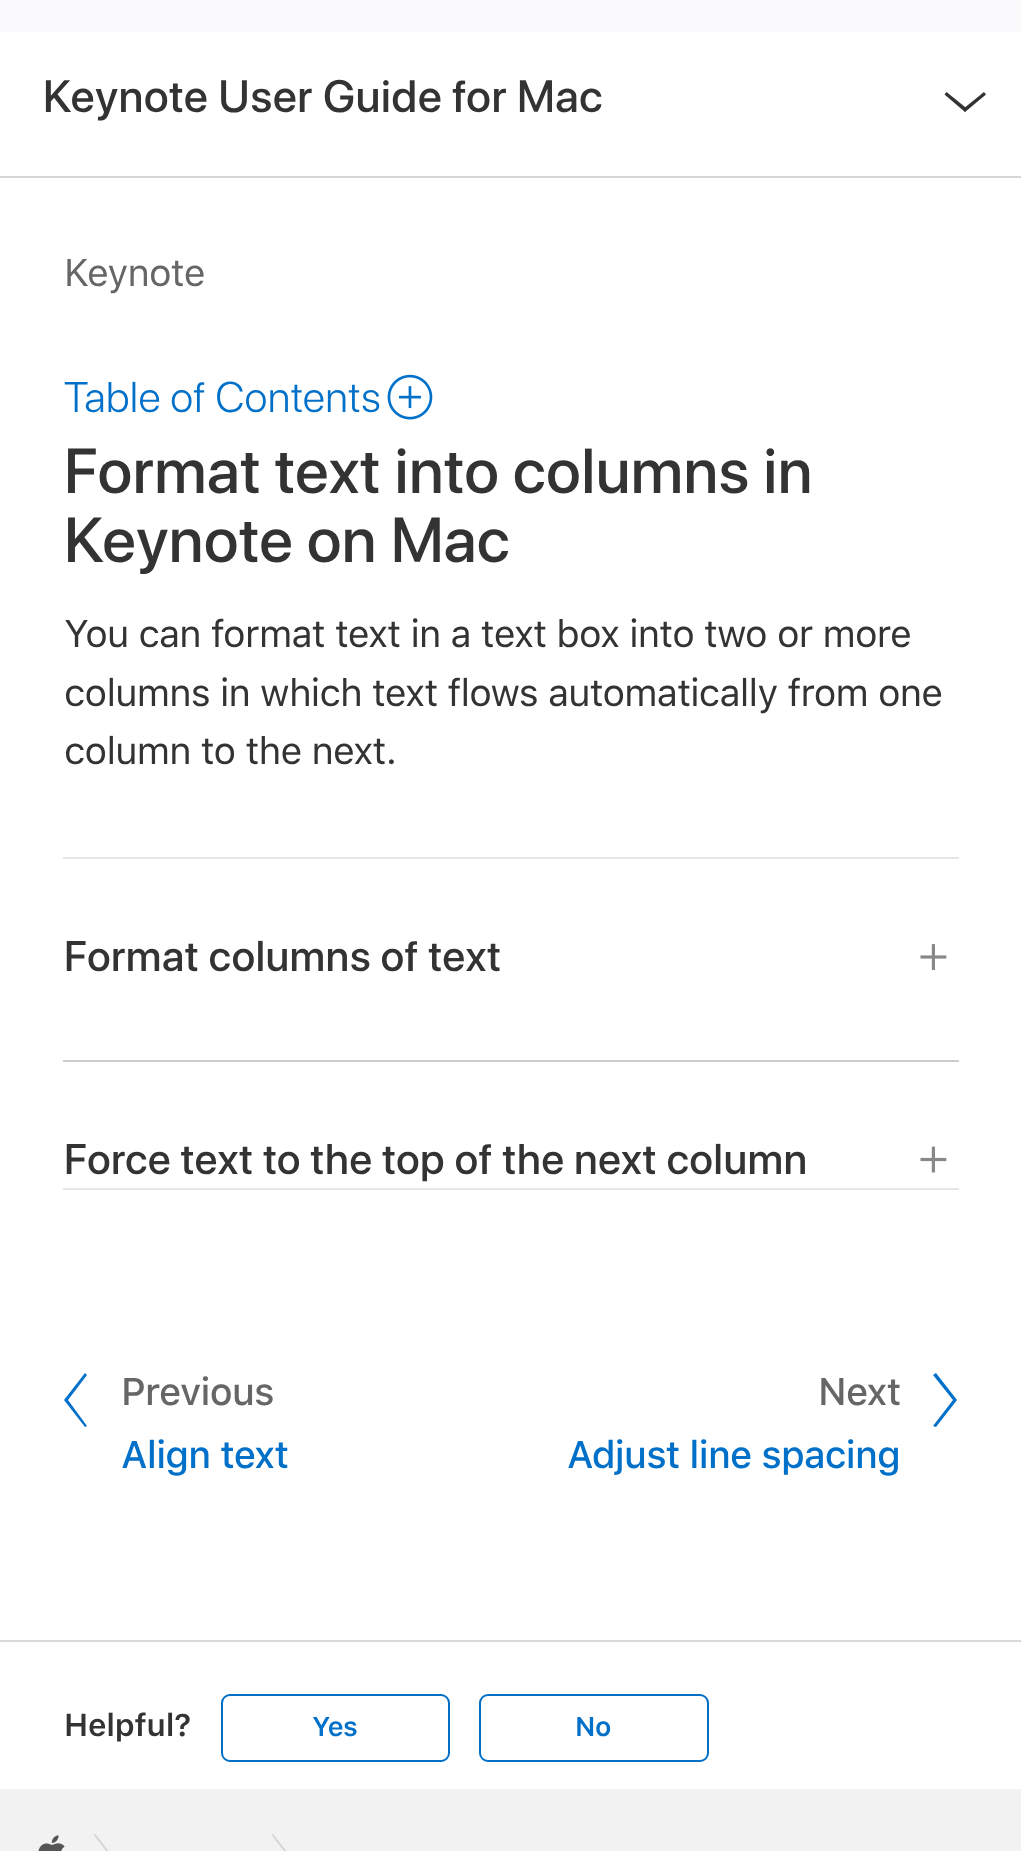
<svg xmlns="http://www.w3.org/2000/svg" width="1021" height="1851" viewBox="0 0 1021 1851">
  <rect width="100%" height="100%" fill="rgb(255,255,255)"/>
  <rect x="0" y="0" width="1021" height="32" fill="rgb(251,251,253)"/>
  <text x="43" y="112" font-family="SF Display" font-size="45" font-weight="500" letter-spacing="0.75" fill="rgb(51,51,51)">Keynote User Guide for Mac</text>
  <path d="M946.5 92L967.5 109L965 112L944.5 94.5Z" fill="rgb(51,51,51)"/>
  <path d="M963 109L984 92L986 94.5L965 112Z" fill="rgb(51,51,51)"/>
  <rect x="0" y="176" width="1021" height="2" fill="rgb(214,214,214)"/>
  <text x="64" y="286" font-family="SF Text" font-size="38.25" letter-spacing="-0.8" fill="rgb(102,102,102)">Keynote</text>
  <text x="64" y="412" font-family="SF Display" font-size="42.75" font-weight="300" letter-spacing="0.75" fill="rgb(0,112,201)">Table of Contents</text>
  <image x="387" y="374" width="46" height="46" href="pic1.png"/>
  <g font-family="SF Display" font-size="63" font-weight="500" letter-spacing="0.75" fill="rgb(51,51,51)">
    <text>
      <tspan x="64" y="493">Format text into columns in</tspan>
      <tspan x="64" y="562">Keynote on Mac</tspan>
    </text>
  </g>
  <g font-family="SF Text" font-size="38.25" letter-spacing="-0.8" fill="rgb(51,51,51)">
    <text>
      <tspan x="64" y="647">You can format text in a text box into two or more</tspan>
      <tspan x="64" y="706">columns in which text flows automatically from one</tspan>
      <tspan x="64" y="764">column to the next.</tspan>
    </text>
  </g>
  <rect x="63" y="857" width="896" height="2" fill="rgb(230,230,230)"/>
  <text x="64" y="971" font-family="SF Display" font-size="42.75" font-weight="500" letter-spacing="0.75" fill="rgb(51,51,51)">Format columns of text</text>
  <image x="920" y="944" width="27" height="26" href="pic2.png"/>
  <rect x="63" y="1060" width="896" height="2" fill="rgb(204,204,204)"/>
  <rect x="63" y="1188" width="896" height="2" fill="rgb(230,230,230)"/>
  <text x="64" y="1174" font-family="SF Display" font-size="42.75" font-weight="500" letter-spacing="0.75" fill="rgb(51,51,51)">Force text to the top of the next column</text>
  <image x="920" y="1146" width="27" height="27" href="pic3.png"/>
  <path d="M85 1373L64 1400L85 1427L87 1426L68 1400L87 1375Z" fill="rgb(0,112,201)"/>
  <text x="121" y="1405" font-family="SF Text" font-size="38.25" font-weight="500" letter-spacing="-0.8" fill="rgb(102,102,102)">Previous</text>
  <text x="121" y="1468" font-family="SF Text" font-size="38.25" font-weight="500" letter-spacing="-0.8" fill="rgb(0,112,201)">Align text</text>
  <text x="818" y="1405" font-family="SF Text" font-size="38.25" font-weight="500" letter-spacing="-0.8" fill="rgb(102,102,102)">Next</text>
  <path d="M933 1375L953 1400L933 1426L936 1427L957 1400L936 1373Z" fill="rgb(0,112,201)"/>
  <text x="567" y="1468" font-family="SF Text" font-size="38.25" font-weight="500" letter-spacing="-0.8" fill="rgb(0,112,201)">Adjust line spacing</text>
  <rect x="0" y="1640" width="1021" height="2" fill="rgb(217,217,217)"/>
  <text x="64" y="1736" font-family="SF Text" font-size="31.5" font-weight="600" letter-spacing="-0.25" fill="rgb(51,51,51)">Helpful?</text>
  <rect x="222" y="1695" width="227" height="66" rx="8" fill="none" stroke="rgb(0,112,201)" stroke-width="2"/>
  <text x="312" y="1736" font-family="SF Text" font-size="27" font-weight="600" letter-spacing="-0.5" fill="rgb(0,112,201)">Yes</text>
  <rect x="480" y="1695" width="228" height="66" rx="8" fill="none" stroke="rgb(0,112,201)" stroke-width="2"/>
  <text x="575" y="1736" font-family="SF Text" font-size="27" font-weight="600" letter-spacing="-0.5" fill="rgb(0,112,201)">No</text>
  <rect x="0" y="1789" width="1021" height="62" fill="rgb(242,242,242)"/>
  <image x="38" y="1835" width="27" height="16" href="pic4.png"/>
  <image x="94" y="1834" width="15" height="17" href="pic5.png"/>
  <image x="271" y="1834" width="15" height="17" href="pic6.png"/>
</svg>
